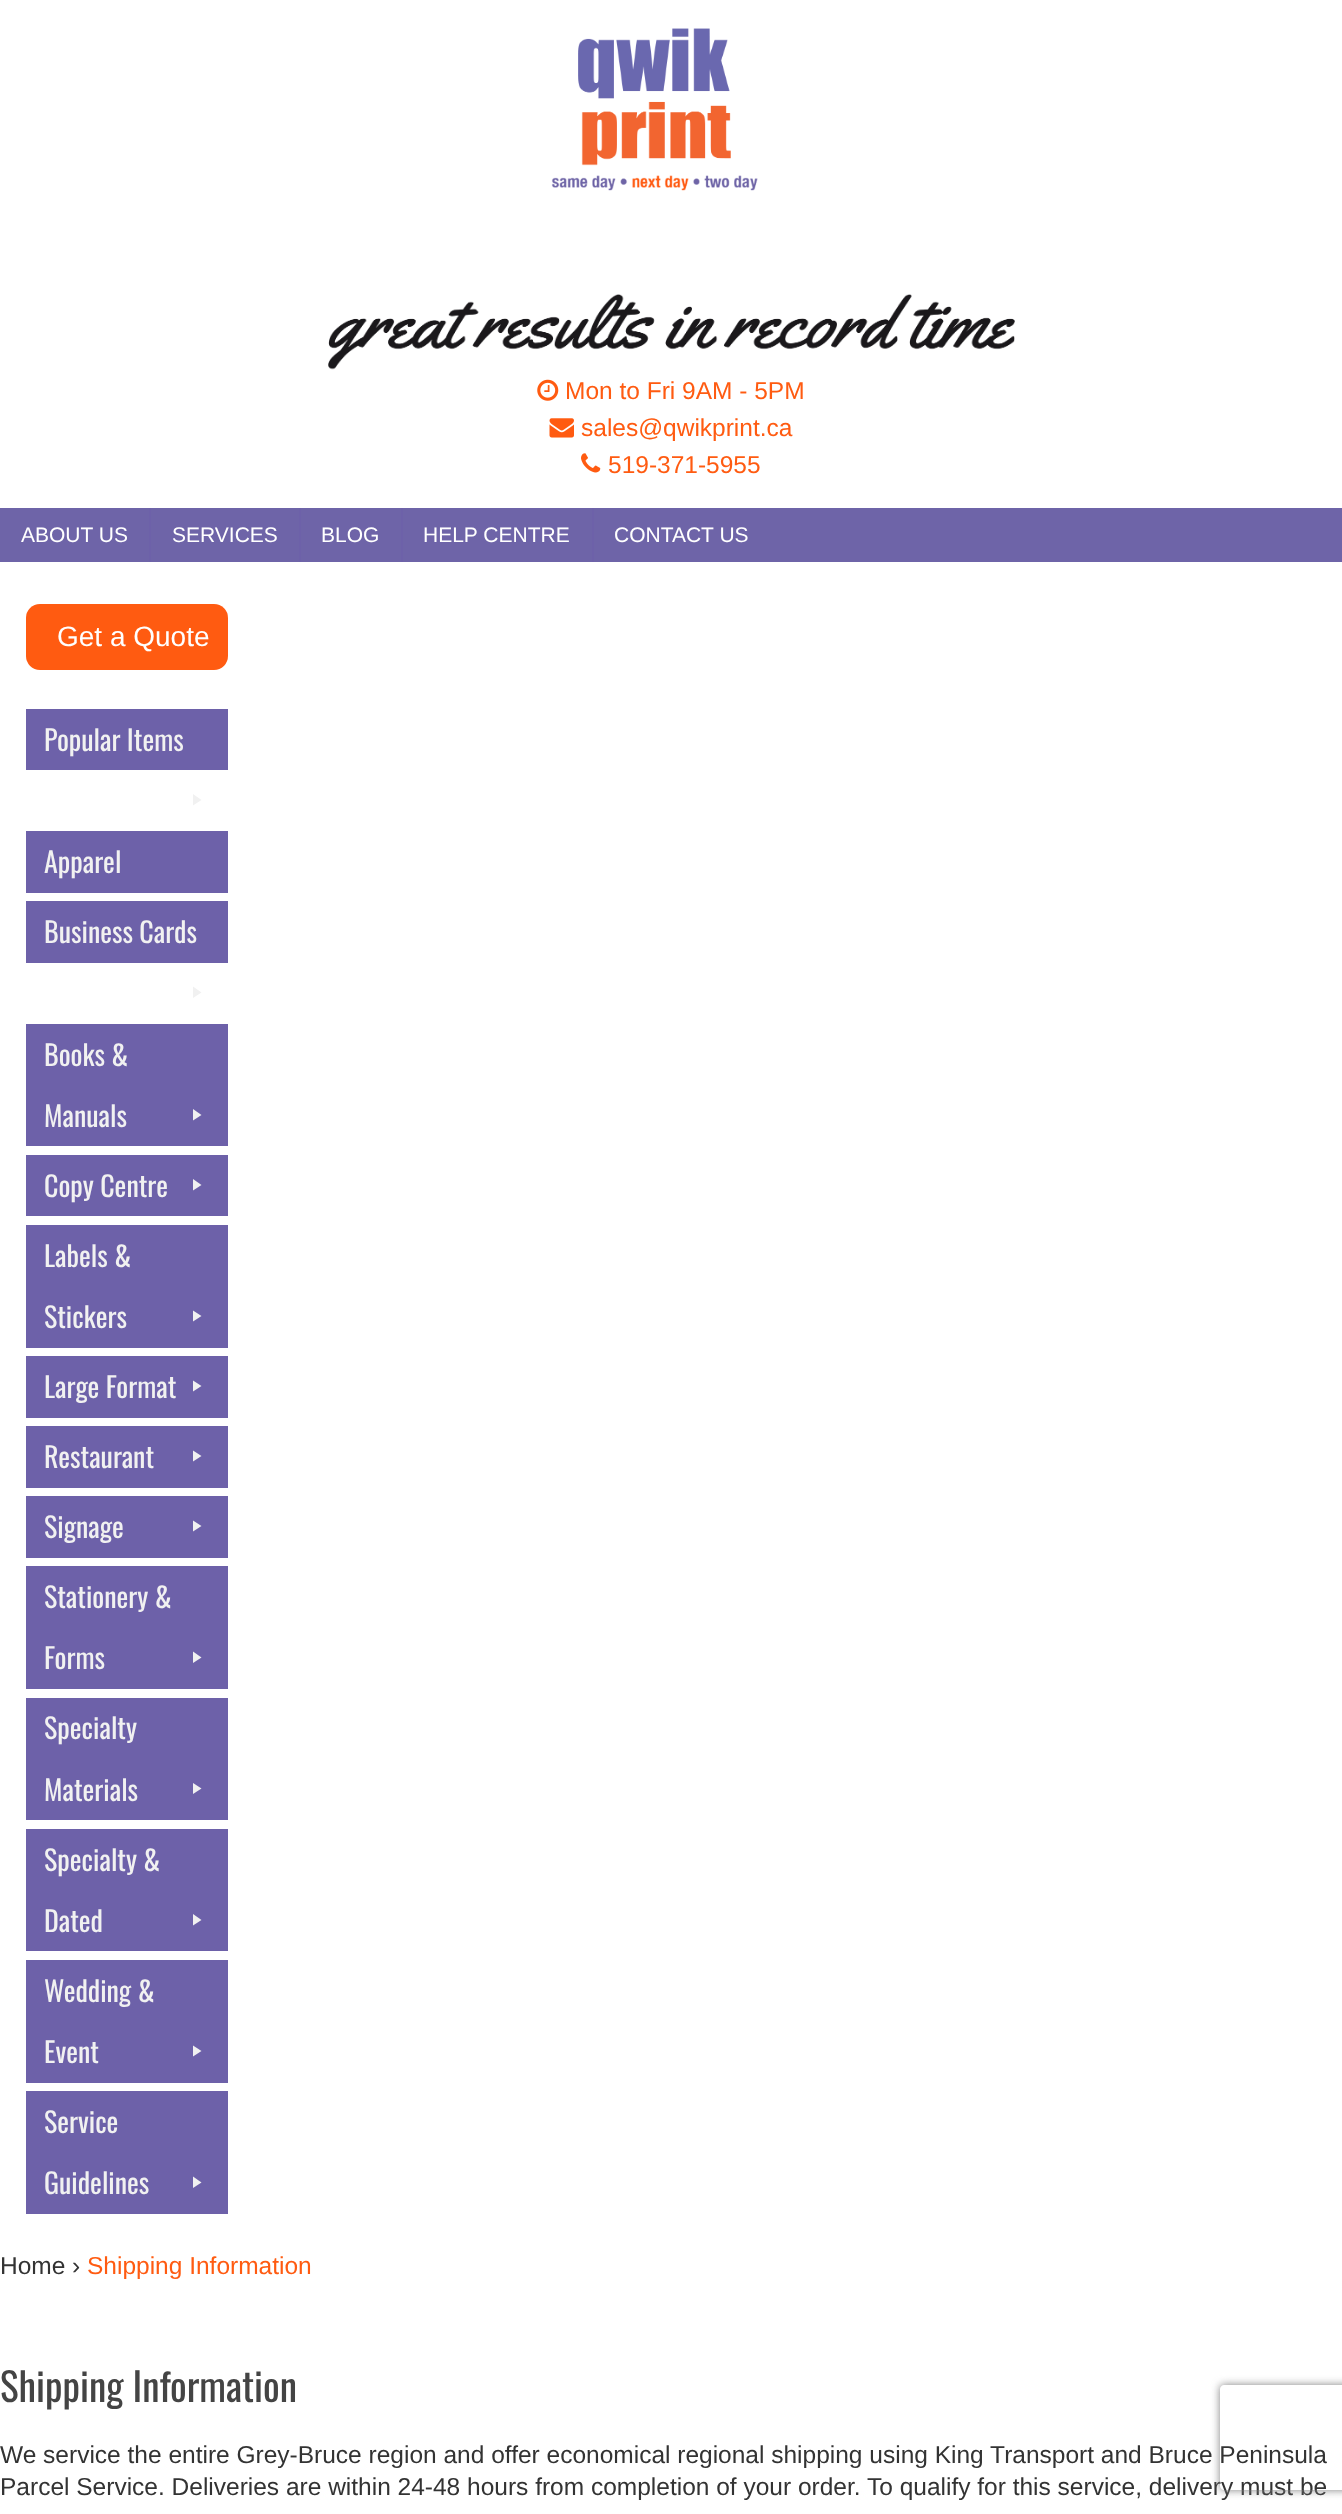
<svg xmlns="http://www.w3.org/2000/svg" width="1342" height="2514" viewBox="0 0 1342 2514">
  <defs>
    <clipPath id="clip1"><path d="M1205 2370H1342V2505H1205ZM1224 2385H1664C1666 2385 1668 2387 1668 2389V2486C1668 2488 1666 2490 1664 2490H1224C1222 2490 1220 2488 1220 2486V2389C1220 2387 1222 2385 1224 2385Z" clip-rule="evenodd"/></clipPath>
  </defs>
  <rect width="100%" height="100%" fill="rgb(255,255,255)"/>
  <image x="551" y="28" width="207" height="163" href="pic1.png"/>
  <image x="328" y="294" width="687" height="76" href="pic2.png"/>
  <image x="537" y="379" width="22" height="22" href="pic3.png"/>
  <text x="565" y="399" font-family="Liberation Sans" font-size="24.5" fill="rgb(255,91,17)">Mon to Fri 9AM - 5PM</text>
  <image x="549" y="418" width="25" height="20" href="pic4.png"/>
  <text x="581" y="436" font-family="Liberation Sans" font-size="24.5" fill="rgb(255,91,17)">sales@qwikprint.ca</text>
  <image x="581" y="453" width="20" height="20" href="pic5.png"/>
  <text x="608" y="473" font-family="Liberation Sans" font-size="24.5" fill="rgb(255,91,17)">519-371-5955</text>
  <rect x="0" y="508" width="1342" height="54" fill="rgb(110,100,168)"/>
  <text x="21" y="542" font-family="Liberation Sans" font-size="21" fill="rgb(255,255,255)">ABOUT US</text>
  <rect x="149" y="508" width="2" height="54" fill="rgb(109,97,169)"/>
  <text x="172" y="542" font-family="Liberation Sans" font-size="21" fill="rgb(255,255,255)">SERVICES</text>
  <rect x="299" y="508" width="2" height="54" fill="rgb(109,97,169)"/>
  <text x="321" y="542" font-family="Liberation Sans" font-size="21" fill="rgb(255,255,255)">BLOG</text>
  <rect x="401" y="508" width="2" height="54" fill="rgb(109,97,169)"/>
  <text x="423" y="542" font-family="Liberation Sans" font-size="21" fill="rgb(255,255,255)">HELP CENTRE</text>
  <rect x="592" y="508" width="2" height="54" fill="rgb(109,97,169)"/>
  <text x="614" y="542" font-family="Liberation Sans" font-size="21" fill="rgb(255,255,255)">CONTACT US</text>
  <rect x="26" y="604" width="202" height="66" rx="14" fill="rgb(255,91,17)"/>
  <text x="57" y="646" font-family="Liberation Sans" font-size="28" fill="rgb(255,255,255)">Get a Quote</text>
  <rect x="26" y="709" width="202" height="61" fill="rgb(109,97,169)"/>
  <text x="44" y="751" font-family="Oswald" font-size="28" fill="rgb(241,241,241)">Popular Items</text>
  <path d="M193 794L201.5 800L193 805.5Z" fill="rgb(241,241,241)"/>
  <rect x="26" y="831" width="202" height="62" fill="rgb(109,97,169)"/>
  <text x="44" y="873" font-family="Oswald" font-size="28" fill="rgb(241,241,241)">Apparel</text>
  <rect x="26" y="901" width="202" height="62" fill="rgb(109,97,169)"/>
  <text x="44" y="943" font-family="Oswald" font-size="28" fill="rgb(241,241,241)">Business Cards</text>
  <path d="M193 986.5L201.5 992.5L193 998Z" fill="rgb(241,241,241)"/>
  <rect x="26" y="1024" width="202" height="122" fill="rgb(109,97,169)"/>
  <g font-family="Oswald" font-size="28" fill="rgb(241,241,241)">
    <text x="44" y="1066">Books &amp;</text>
    <text x="44" y="1127">Manuals</text>
  </g>
  <path d="M193 1109L201.5 1115L193 1120.5Z" fill="rgb(241,241,241)"/>
  <rect x="26" y="1155" width="202" height="61" fill="rgb(109,97,169)"/>
  <text x="44" y="1197" font-family="Oswald" font-size="28" fill="rgb(241,241,241)">Copy Centre</text>
  <path d="M193 1179L201.5 1185L193 1190.5Z" fill="rgb(241,241,241)"/>
  <rect x="26" y="1225" width="202" height="123" fill="rgb(109,97,169)"/>
  <g font-family="Oswald" font-size="28" fill="rgb(241,241,241)">
    <text x="44" y="1267">Labels &amp;</text>
    <text x="44" y="1328">Stickers</text>
  </g>
  <path d="M193 1310.5L201.5 1316L193 1321.5Z" fill="rgb(241,241,241)"/>
  <rect x="26" y="1356" width="202" height="62" fill="rgb(109,97,169)"/>
  <text x="44" y="1398" font-family="Oswald" font-size="28" fill="rgb(241,241,241)">Large Format</text>
  <path d="M193 1380.5L201.5 1386L193 1391.5Z" fill="rgb(241,241,241)"/>
  <rect x="26" y="1426" width="202" height="62" fill="rgb(109,97,169)"/>
  <text x="44" y="1468" font-family="Oswald" font-size="28" fill="rgb(241,241,241)">Restaurant</text>
  <path d="M193 1450.5L201.5 1456L193 1461.5Z" fill="rgb(241,241,241)"/>
  <rect x="26" y="1496" width="202" height="62" fill="rgb(109,97,169)"/>
  <text x="44" y="1538" font-family="Oswald" font-size="28" fill="rgb(241,241,241)">Signage</text>
  <path d="M193 1520.5L201.5 1526L193 1531.5Z" fill="rgb(241,241,241)"/>
  <rect x="26" y="1566" width="202" height="123" fill="rgb(109,97,169)"/>
  <g font-family="Oswald" font-size="28" fill="rgb(241,241,241)">
    <text x="44" y="1608">Stationery &amp;</text>
    <text x="44" y="1669">Forms</text>
  </g>
  <path d="M193 1651.5L201.5 1657.5L193 1663Z" fill="rgb(241,241,241)"/>
  <rect x="26" y="1698" width="202" height="122" fill="rgb(109,97,169)"/>
  <g font-family="Oswald" font-size="28" fill="rgb(241,241,241)">
    <text x="44" y="1739">Specialty</text>
    <text x="44" y="1801">Materials</text>
  </g>
  <path d="M193 1783L201.5 1788.5L193 1794Z" fill="rgb(241,241,241)"/>
  <rect x="26" y="1829" width="202" height="122" fill="rgb(109,97,169)"/>
  <g font-family="Oswald" font-size="28" fill="rgb(241,241,241)">
    <text x="44" y="1871">Specialty &amp;</text>
    <text x="44" y="1932">Dated</text>
  </g>
  <path d="M193 1914L201.5 1920L193 1925.5Z" fill="rgb(241,241,241)"/>
  <rect x="26" y="1960" width="202" height="123" fill="rgb(109,97,169)"/>
  <g font-family="Oswald" font-size="28" fill="rgb(241,241,241)">
    <text x="44" y="2002">Wedding &amp;</text>
    <text x="44" y="2063">Event</text>
  </g>
  <path d="M193 2045.5L201.5 2051L193 2056.5Z" fill="rgb(241,241,241)"/>
  <rect x="26" y="2091" width="202" height="123" fill="rgb(109,97,169)"/>
  <g font-family="Oswald" font-size="28" fill="rgb(241,241,241)">
    <text x="44" y="2133">Service</text>
    <text x="44" y="2194">Guidelines</text>
  </g>
  <path d="M193 2176.5L201.5 2182.5L193 2188Z" fill="rgb(241,241,241)"/>
  <g font-family="Liberation Sans" font-size="24.5" fill="rgb(51,51,51)">
    <text x="0" y="2274">Home</text>
    <text x="72" y="2274">›</text>
  </g>
  <text x="87" y="2274" font-family="Liberation Sans" font-size="24.5" fill="rgb(255,91,17)">Shipping Information</text>
  <text x="0" y="2402" font-family="Oswald" font-size="39.25" fill="rgb(68,68,68)">Shipping Information</text>
  <g font-family="Liberation Sans" font-size="24.5" fill="rgb(51,51,51)">
    <text>
      <tspan x="0" y="2463">We service the entire Grey-Bruce region and offer economical regional shipping using King Transport and Bruce Peninsula</tspan>
      <tspan x="0" y="2495">Parcel Service. Deliveries are within 24-48 hours from completion of your order. To qualify for this service, delivery must be</tspan>
    </text>
  </g>
  <g clip-path="url(#clip1)">
    <rect x="1220" y="2385" width="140" height="105" rx="4" fill="rgb(128,128,128)" filter="blur(4.5px)"/>
  </g>
</svg>
